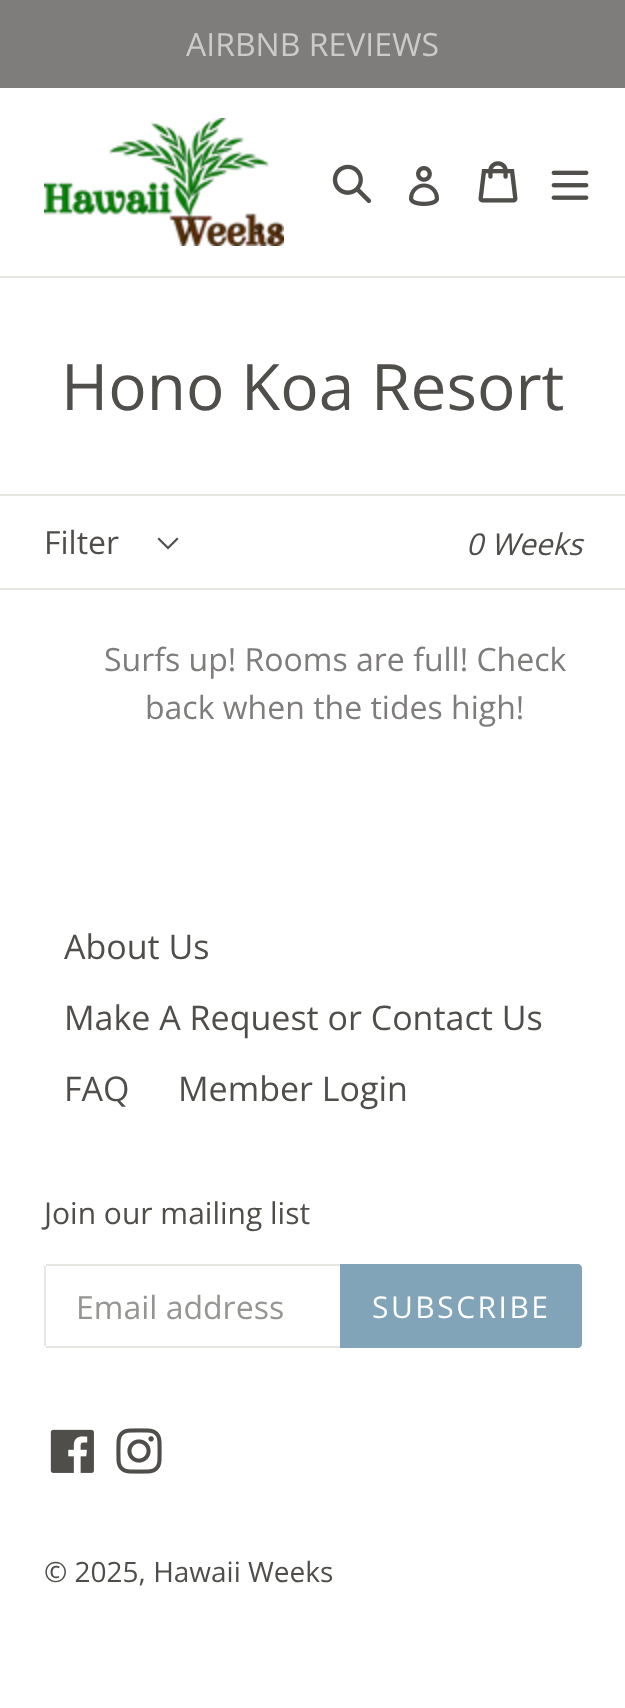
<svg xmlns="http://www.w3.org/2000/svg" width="625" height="1708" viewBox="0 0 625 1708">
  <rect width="100%" height="100%" fill="rgb(255,255,255)"/>
  <rect x="0" y="0" width="625" height="88" fill="rgb(127,125,124)"/>
  <text x="186" y="56" font-family="Open Sans" font-size="32" fill="rgb(204,203,203)">AIRBNB REVIEWS</text>
  <rect x="0" y="276" width="625" height="2" fill="rgb(230,230,224)"/>
  <image x="44" y="118" width="240" height="128" href="pic1.png"/>
  <image x="332" y="164" width="40" height="40" href="pic2.png"/>
  <image x="409" y="166" width="31" height="40" href="pic3.png"/>
  <image x="478" y="161" width="40" height="42" href="pic4.png"/>
  <image x="551" y="170" width="38" height="30" href="pic5.png"/>
  <text x="61" y="410" font-family="Open Sans" font-size="64" fill="rgb(80,78,74)">Hono Koa Resort</text>
  <rect x="0" y="494" width="625" height="2" fill="rgb(230,230,224)"/>
  <rect x="0" y="588" width="625" height="2" fill="rgb(230,230,224)"/>
  <path d="M168 549.5L157.5 539L159 537.5L168 546.5L177 537.5L178.5 539Z" fill="rgb(80,78,74)"/>
  <text x="44" y="554" font-family="Open Sans" font-size="32" fill="rgb(80,78,74)">Filter</text>
  <text x="466" y="555" font-family="Open Sans" font-size="30" font-style="italic" fill="rgb(80,78,74)">0 Weeks</text>
  <g font-family="Open Sans" font-size="32" fill="rgb(127,125,124)">
    <text x="104" y="671">Surfs up! Rooms are full! Check</text>
    <text x="145" y="719">back when the tides high!</text>
  </g>
  <g font-family="Open Sans" font-size="34" fill="rgb(80,78,74)">
    <text x="64" y="959">About Us</text>
    <text x="64" y="1030">Make A Request or Contact Us</text>
    <text x="64" y="1101">FAQ</text>
    <text x="178" y="1101">Member Login</text>
  </g>
  <text x="44" y="1224" font-family="Open Sans" font-size="30" fill="rgb(80,78,74)">Join our mailing list</text>
  <rect x="46" y="1264" width="294" height="2" fill="rgb(230,230,224)"/>
  <rect x="46" y="1346" width="294" height="2" fill="rgb(230,230,224)"/>
  <rect x="44" y="1266" width="2" height="80" fill="rgb(230,230,224)"/>
  <text x="76" y="1319" font-family="Open Sans" font-size="32" fill="rgb(150,149,146)">Email address</text>
  <path d="M340 1264H578C580 1264 582 1266 582 1268V1344C582 1346 580 1348 578 1348H340Z" fill="rgb(130,164,184)"/>
  <text x="372" y="1318" font-family="Open Sans" font-size="30" letter-spacing="2.5" fill="rgb(255,255,255)">SUBSCRIBE</text>
  <image x="50" y="1429" width="44" height="44" href="pic6.png"/>
  <image x="116" y="1428" width="46" height="46" href="pic7.png"/>
  <text x="44" y="1582" font-family="Open Sans" font-size="28" fill="rgb(80,78,74)">© 2025, Hawaii Weeks</text>
</svg>
